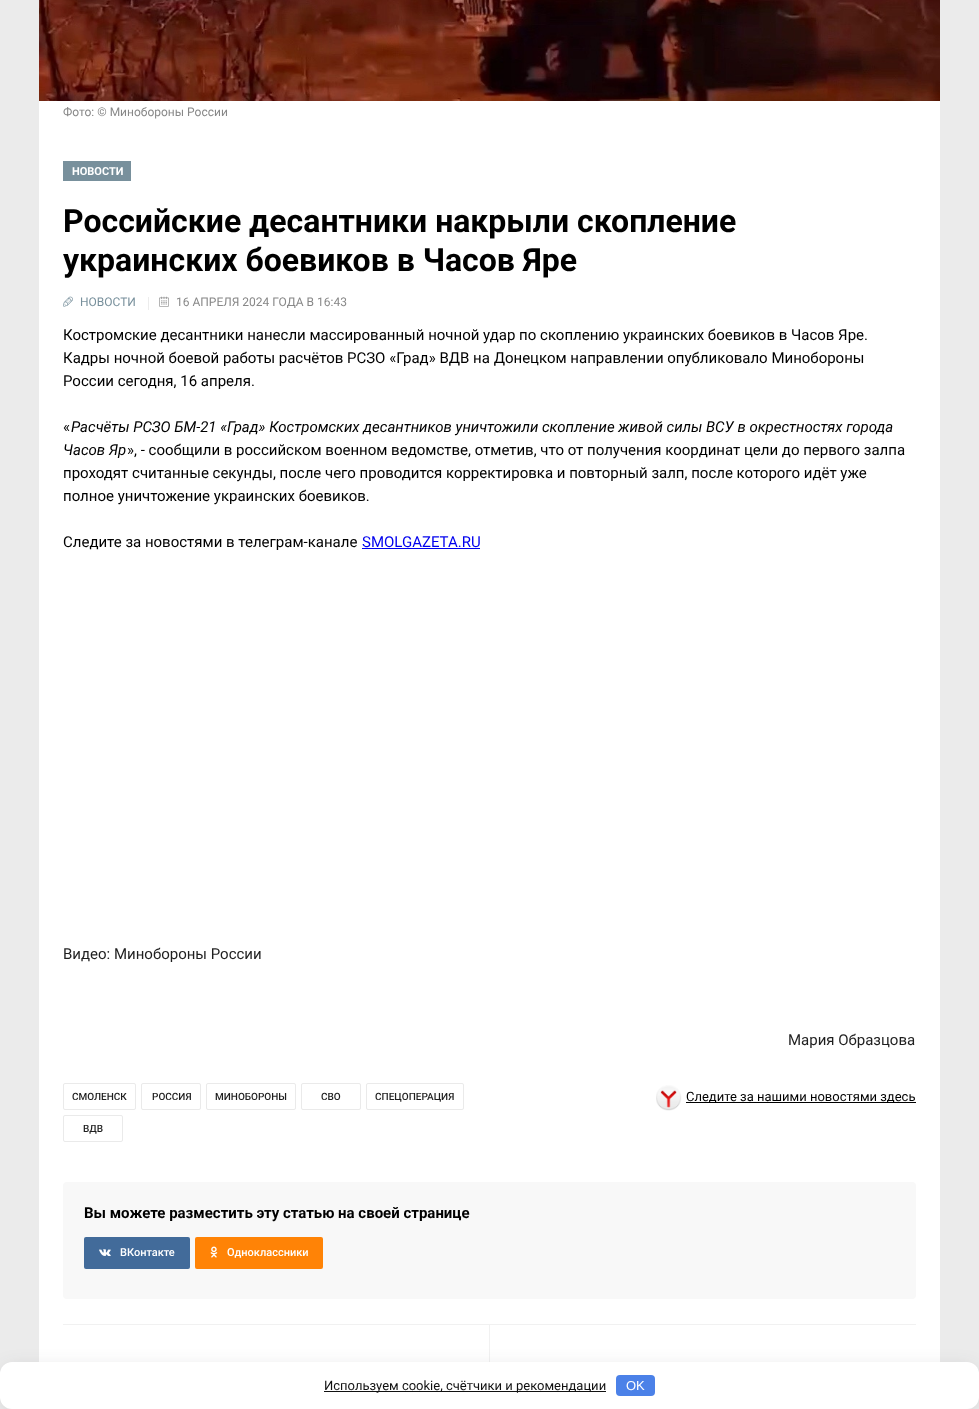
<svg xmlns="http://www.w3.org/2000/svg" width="979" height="1409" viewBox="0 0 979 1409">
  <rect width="100%" height="100%" fill="rgb(235,235,235)"/>
  <rect x="39" y="101" width="901" height="1261" fill="rgb(255,255,255)"/>
  <image x="39" y="0" width="901" height="101" href="pic1.png"/>
  <text x="63" y="116" font-family="Roboto" font-size="12" fill="rgb(136,136,136)">Фото: © Минобороны России</text>
  <rect x="63" y="161" width="68" height="20" fill="rgb(120,144,156)"/>
  <text x="72" y="175" font-family="Roboto" font-size="11" font-weight="bold" fill="rgb(255,255,255)">НОВОСТИ</text>
  <g font-family="Roboto" font-size="32" font-weight="bold" fill="rgb(0,0,0)">
    <text>
      <tspan x="63" y="232">Российские десантники накрыли скопление</tspan>
      <tspan x="63" y="271">украинских боевиков в Часов Яре</tspan>
    </text>
  </g>
  <image x="63" y="296" width="10" height="11" href="pic2.png"/>
  <text x="80" y="306" font-family="Roboto" font-size="12" fill="rgb(120,144,156)">НОВОСТИ</text>
  <rect x="148" y="297" width="1" height="13" fill="rgb(236,236,236)"/>
  <image x="159" y="296" width="10" height="11" href="pic3.png"/>
  <text x="176" y="306" font-family="Roboto" font-size="12" fill="rgb(136,136,136)">16 АПРЕЛЯ 2024 ГОДА В 16:43</text>
  <g font-family="Roboto" font-size="15" fill="rgb(0,0,0)">
    <text>
      <tspan x="63" y="340">Костромские десантники нанесли массированный ночной удар по скоплению украинских боевиков в Часов Яре.</tspan>
      <tspan x="63" y="363">Кадры ночной боевой работы расчётов РСЗО «Град» ВДВ на Донецком направлении опубликовало Минобороны</tspan>
      <tspan x="63" y="386">России сегодня, 16 апреля.</tspan>
    </text>
    <text x="63" y="432">«</text>
  </g>
  <g font-family="Roboto" font-size="15" font-style="italic" fill="rgb(0,0,0)">
    <text x="71" y="432">Расчёты РСЗО БМ-21 «Град» Костромских десантников уничтожили скопление живой силы ВСУ в окрестностях города</text>
    <text x="63" y="455">Часов Яр</text>
  </g>
  <g font-family="Roboto" font-size="15" fill="rgb(0,0,0)">
    <text x="127" y="455">», - сообщили в российском военном ведомстве, отметив, что от получения координат цели до первого залпа</text>
    <text>
      <tspan x="63" y="478">проходят считанные секунды, после чего проводится корректировка и повторный залп, после которого идёт уже</tspan>
      <tspan x="63" y="501">полное уничтожение украинских боевиков.</tspan>
    </text>
    <text x="63" y="547">Следите за новостями в телеграм-канале</text>
  </g>
  <text x="362" y="547" font-family="Roboto" font-size="15" fill="rgb(0,0,238)">SMOLGAZETA.RU</text>
  <rect x="362" y="548" width="118" height="1" fill="rgb(0,0,238)"/>
  <g font-family="Roboto" font-size="15" fill="rgb(31,31,31)">
    <text x="63" y="959">Видео: Минобороны России</text>
    <text x="788" y="1045">Мария Образцова</text>
  </g>
  <rect x="63.5" y="1083.5" width="72" height="26" rx="1.5" fill="none" stroke="rgb(234,234,234)"/>
  <text x="72" y="1100" font-family="Roboto" font-size="10" font-weight="500" fill="rgb(31,31,31)">СМОЛЕНСК</text>
  <rect x="141.5" y="1083.5" width="59" height="26" rx="1.5" fill="none" stroke="rgb(234,234,234)"/>
  <text x="152" y="1100" font-family="Roboto" font-size="10" font-weight="500" fill="rgb(31,31,31)">РОССИЯ</text>
  <rect x="206.5" y="1083.5" width="89" height="26" rx="1.5" fill="none" stroke="rgb(234,234,234)"/>
  <text x="215" y="1100" font-family="Roboto" font-size="10" font-weight="500" fill="rgb(31,31,31)">МИНОБОРОНЫ</text>
  <rect x="301.5" y="1083.5" width="59" height="26" rx="1.5" fill="none" stroke="rgb(234,234,234)"/>
  <text x="321" y="1100" font-family="Roboto" font-size="10" font-weight="500" fill="rgb(31,31,31)">СВО</text>
  <rect x="366.5" y="1083.5" width="97" height="26" rx="1.5" fill="none" stroke="rgb(234,234,234)"/>
  <text x="375" y="1100" font-family="Roboto" font-size="10" font-weight="500" fill="rgb(31,31,31)">СПЕЦОПЕРАЦИЯ</text>
  <rect x="63.5" y="1115.5" width="59" height="26" rx="1.5" fill="none" stroke="rgb(234,234,234)"/>
  <text x="83" y="1132" font-family="Roboto" font-size="10" font-weight="500" fill="rgb(31,31,31)">ВДВ</text>
  <image x="656" y="1085" width="26" height="26" href="pic4.png"/>
  <rect x="686" y="1102" width="230" height="1" fill="rgb(0,0,0)"/>
  <text x="686" y="1101" font-family="Roboto" font-size="13" fill="rgb(0,0,0)">Следите за нашими новостями здесь</text>
  <rect x="63" y="1182" width="853" height="117" rx="4" fill="rgb(248,248,248)"/>
  <text x="84" y="1218" font-family="Roboto" font-size="15" font-weight="bold" fill="rgb(0,0,0)">Вы можете разместить эту статью на своей странице</text>
  <rect x="84" y="1237" width="106" height="32" rx="2" fill="rgb(66,107,154)"/>
  <image x="99" y="1249" width="12" height="7" href="pic5.png"/>
  <text x="120" y="1256" font-family="Roboto" font-size="11" font-weight="500" fill="rgb(255,255,255)">ВКонтакте</text>
  <rect x="195" y="1237" width="128" height="32" rx="2" fill="rgb(255,131,6)"/>
  <image x="210" y="1246" width="8" height="12" href="pic6.png"/>
  <text x="227" y="1256" font-family="Roboto" font-size="11" font-weight="500" fill="rgb(255,255,255)">Одноклассники</text>
  <rect x="63" y="1324" width="853" height="1" fill="rgb(241,241,241)"/>
  <rect x="489" y="1325" width="1" height="37" fill="rgb(241,241,241)"/>
  <rect x="5" y="1370" width="969" height="37" rx="7" fill="rgba(41,44,56,0.2)" filter="blur(10px)"/>
  <rect x="0" y="1362" width="979" height="47" rx="12" fill="rgb(255,255,255)"/>
  <rect x="324" y="1391" width="282" height="1" fill="rgb(17,17,17)"/>
  <text x="324" y="1390" font-family="Roboto" font-size="13" fill="rgb(17,17,17)">Используем cookie, счётчики и рекомендации</text>
  <rect x="616" y="1375" width="39" height="21" rx="4" fill="rgb(75,129,232)"/>
  <text x="626" y="1390" font-family="Liberation Sans" font-size="13" fill="rgb(255,255,255)">OK</text>
</svg>
